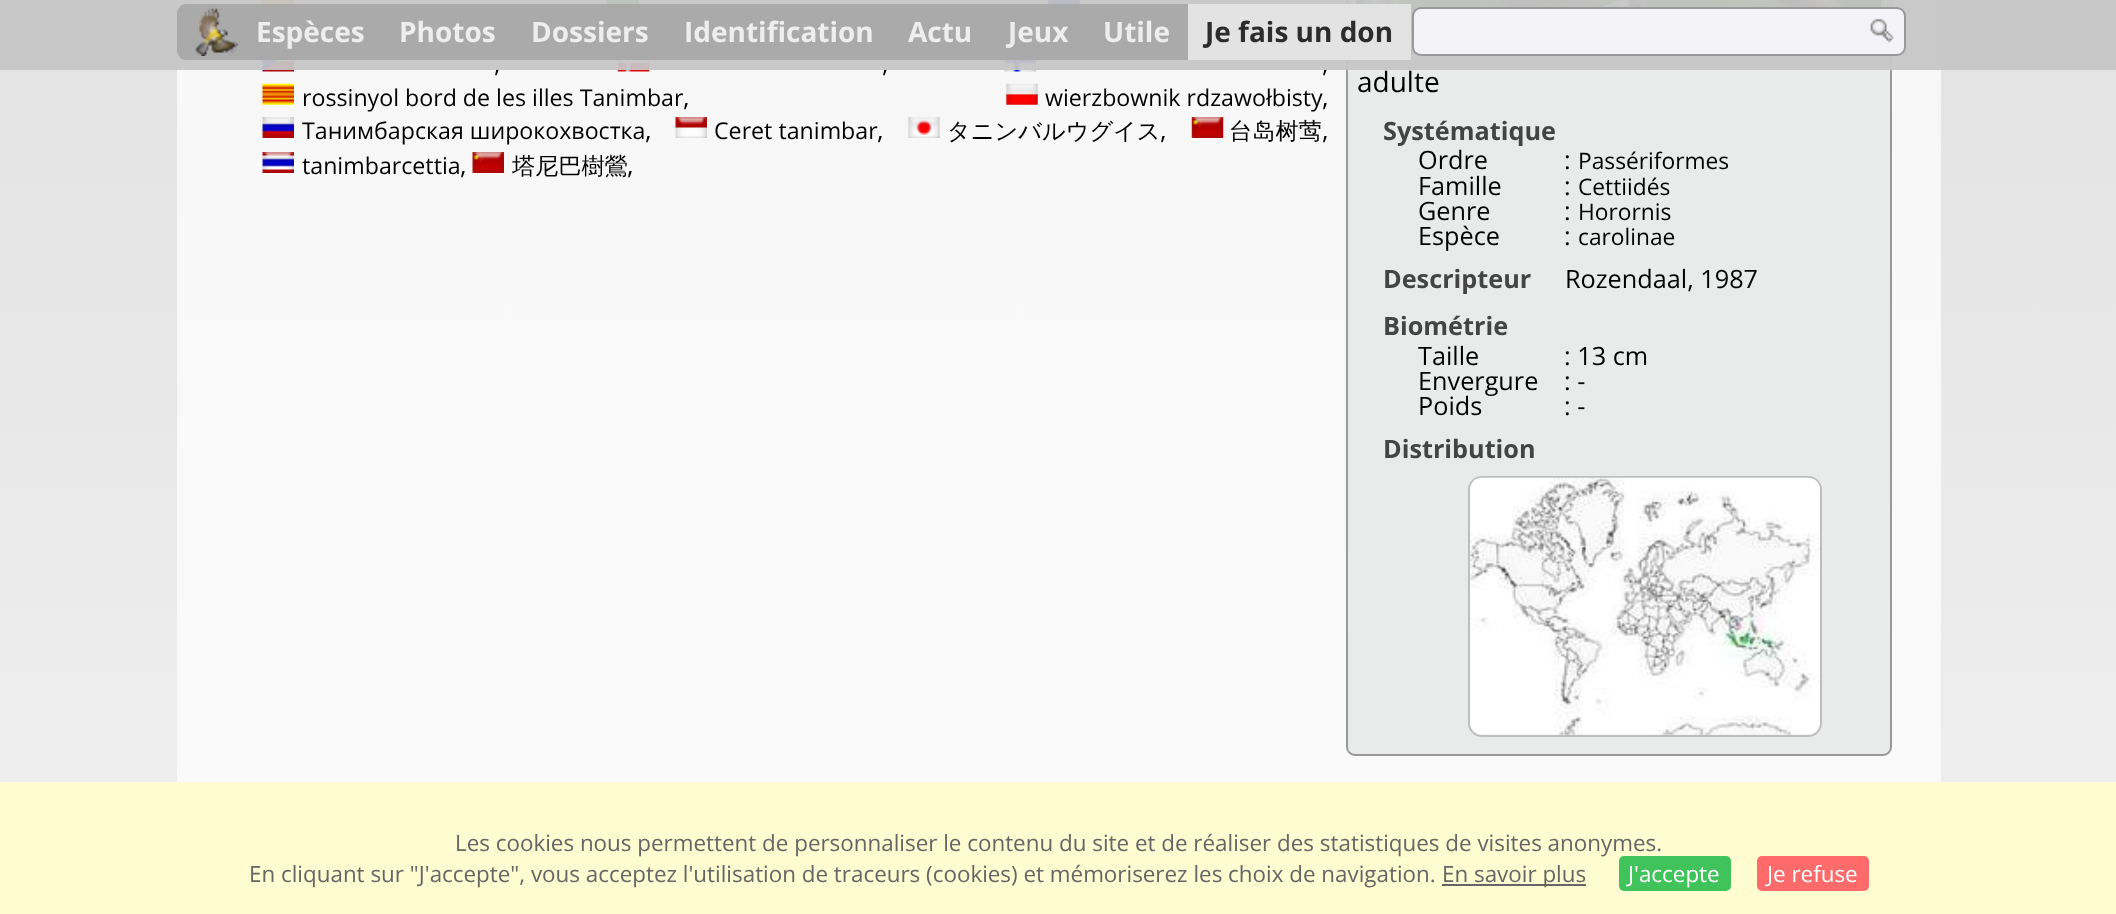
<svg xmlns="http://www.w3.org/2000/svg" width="2116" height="914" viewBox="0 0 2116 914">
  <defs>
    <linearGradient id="g1" gradientUnits="userSpaceOnUse" x1="1059" y1="-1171" x2="1059" y2="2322"><stop offset="0" stop-color="rgb(187,187,187)"/><stop offset="0.13" stop-color="rgb(187,187,187)"/><stop offset="0.23" stop-color="rgb(221,221,221)"/><stop offset="0.9" stop-color="rgb(255,255,255)"/><stop offset="1" stop-color="rgb(255,255,255)"/></linearGradient>
    <linearGradient id="g2" gradientUnits="userSpaceOnUse" x1="1059" y1="-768" x2="1059" y2="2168"><stop offset="0" stop-color="rgb(245,245,245)"/><stop offset="1" stop-color="rgb(254,254,254)"/></linearGradient>
  </defs>
  <rect width="100%" height="100%" fill="rgb(255,255,255)"/>
  <rect x="0" y="0" width="2116" height="782" fill="url(#g1)"/>
  <rect x="177" y="0" width="1764" height="782" fill="url(#g2)"/>
  <image x="262" y="0" width="32" height="4" href="pic3.png"/>
  <image x="607" y="0" width="32" height="4" href="pic4.png"/>
  <image x="1048" y="0" width="32" height="4" href="pic5.png"/>
  <image x="262" y="60" width="32" height="12" href="pic6.png"/>
  <text x="494" y="72" font-family="Open Sans" font-size="25.25" fill="rgb(0,0,0)">,</text>
  <image x="617" y="60" width="33" height="12" href="pic7.png"/>
  <text x="882" y="72" font-family="Open Sans" font-size="25.25" fill="rgb(0,0,0)">,</text>
  <image x="1004" y="60" width="32" height="12" href="pic8.png"/>
  <text x="1322" y="72" font-family="Open Sans" font-size="25.25" fill="rgb(0,0,0)">,</text>
  <rect x="1347" y="-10" width="544" height="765" rx="8" fill="rgb(233,235,235)" stroke="rgb(153,153,153)" stroke-width="2"/>
  <image x="1356" y="0" width="526" height="54" href="pic17.png"/>
  <rect x="0" y="0" width="2116" height="70" fill="rgba(198,198,198,0.95)"/>
  <rect x="177" y="4" width="1234" height="56" rx="9" fill="rgb(170,170,170)"/>
  <image x="195" y="7" width="43" height="49" href="pic1.png"/>
  <g font-family="Open Sans" font-size="28" font-weight="bold" fill="rgb(238,238,238)">
    <text x="256" y="42">Espèces</text>
    <text x="399" y="42">Photos</text>
    <text x="531" y="42">Dossiers</text>
    <text x="684" y="42">Identification</text>
    <text x="908" y="42">Actu</text>
    <text x="1008" y="42">Jeux</text>
    <text x="1103" y="42">Utile</text>
  </g>
  <rect x="1188" y="4" width="223" height="56" fill="rgb(227,227,227)"/>
  <text x="1205" y="42" font-family="Open Sans" font-size="28" font-weight="bold" fill="rgb(44,44,44)">Je fais un don</text>
  <rect x="1413" y="8" width="492" height="47" rx="8" fill="rgb(243,243,248)" stroke="rgb(153,153,153)" stroke-width="2"/>
  <image x="1870" y="18" width="24" height="25" href="pic2.png"/>
  <image x="262" y="83" width="32" height="22" href="pic9.png"/>
  <text x="302" y="106" font-family="Open Sans" font-size="23.2" fill="rgb(0,0,0)">rossinyol bord de les illes Tanimbar</text>
  <text x="683" y="106" font-family="Open Sans" font-size="25.25" fill="rgb(0,0,0)">,</text>
  <image x="1006" y="83" width="32" height="22" href="pic10.png"/>
  <text x="1045" y="106" font-family="Open Sans" font-size="23.2" fill="rgb(0,0,0)">wierzbownik rdzawołbisty</text>
  <text x="1322" y="106" font-family="Open Sans" font-size="25.25" fill="rgb(0,0,0)">,</text>
  <image x="262" y="117" width="32" height="21" href="pic11.png"/>
  <text x="302" y="139" font-family="Open Sans" font-size="23.2" fill="rgb(0,0,0)">Танимбарская широкохвостка</text>
  <text x="645" y="139" font-family="Open Sans" font-size="25.25" fill="rgb(0,0,0)">,</text>
  <image x="675" y="117" width="32" height="21" href="pic12.png"/>
  <text x="714" y="139" font-family="Open Sans" font-size="23.2" fill="rgb(0,0,0)">Ceret tanimbar</text>
  <text x="877" y="139" font-family="Open Sans" font-size="25.25" fill="rgb(0,0,0)">,</text>
  <image x="908" y="117" width="32" height="21" href="pic13.png"/>
  <text x="947" y="139" font-family="WenQuanYi Zen Hei" font-size="23.2" font-weight="500" fill="rgb(0,0,0)">タニンバルウグイス</text>
  <text x="1160" y="139" font-family="Open Sans" font-size="25.25" fill="rgb(0,0,0)">,</text>
  <image x="1191" y="117" width="33" height="21" href="pic14.png"/>
  <text x="1229" y="139" font-family="WenQuanYi Zen Hei" font-size="23.2" font-weight="500" fill="rgb(0,0,0)">台岛树莺</text>
  <text x="1322" y="139" font-family="Open Sans" font-size="25.25" fill="rgb(0,0,0)">,</text>
  <image x="262" y="152" width="32" height="21" href="pic15.png"/>
  <text x="302" y="174" font-family="Open Sans" font-size="23.2" fill="rgb(0,0,0)">tanimbarcettia</text>
  <text x="460" y="174" font-family="Open Sans" font-size="25.25" fill="rgb(0,0,0)">,</text>
  <image x="472" y="152" width="32" height="21" href="pic16.png"/>
  <text x="512" y="174" font-family="WenQuanYi Zen Hei" font-size="23.2" font-weight="500" fill="rgb(0,0,0)">塔尼巴樹鶯</text>
  <text x="627" y="174" font-family="Open Sans" font-size="25.25" fill="rgb(0,0,0)">,</text>
  <text x="1357" y="92" font-family="Open Sans" font-size="28" fill="rgb(0,0,0)">adulte</text>
  <text x="1383" y="140" font-family="Open Sans" font-size="25.25" font-weight="bold" fill="rgb(68,68,68)">Systématique</text>
  <g font-family="Open Sans" font-size="25.25" fill="rgb(0,0,0)">
    <text x="1418" y="169">Ordre</text>
    <text x="1564" y="169">:</text>
  </g>
  <text x="1578" y="169" font-family="Open Sans" font-size="22.75" fill="rgb(0,0,0)">Passériformes</text>
  <g font-family="Open Sans" font-size="25.25" fill="rgb(0,0,0)">
    <text x="1418" y="195">Famille</text>
    <text x="1564" y="195">:</text>
  </g>
  <text x="1578" y="195" font-family="Open Sans" font-size="22.75" fill="rgb(0,0,0)">Cettiidés</text>
  <g font-family="Open Sans" font-size="25.25" fill="rgb(0,0,0)">
    <text x="1418" y="220">Genre</text>
    <text x="1564" y="220">:</text>
  </g>
  <text x="1578" y="220" font-family="Open Sans" font-size="22.75" fill="rgb(0,0,0)">Horornis</text>
  <g font-family="Open Sans" font-size="25.25" fill="rgb(0,0,0)">
    <text x="1418" y="245">Espèce</text>
    <text x="1564" y="245">:</text>
  </g>
  <text x="1578" y="245" font-family="Open Sans" font-size="22.75" fill="rgb(0,0,0)">carolinae</text>
  <text x="1383" y="288" font-family="Open Sans" font-size="25.25" font-weight="bold" fill="rgb(68,68,68)">Descripteur</text>
  <text x="1565" y="288" font-family="Open Sans" font-size="25.25" fill="rgb(0,0,0)">Rozendaal, 1987</text>
  <text x="1383" y="335" font-family="Open Sans" font-size="25.25" font-weight="bold" fill="rgb(68,68,68)">Biométrie</text>
  <g font-family="Open Sans" font-size="25.25" fill="rgb(0,0,0)">
    <text x="1418" y="365">Taille</text>
    <text x="1564" y="365">: 13 cm</text>
    <text x="1418" y="390">Envergure</text>
    <text x="1564" y="390">: -</text>
    <text x="1418" y="415">Poids</text>
    <text x="1564" y="415">: -</text>
  </g>
  <text x="1383" y="458" font-family="Open Sans" font-size="25.25" font-weight="bold" fill="rgb(68,68,68)">Distribution</text>
  <rect x="1469" y="477" width="352" height="259" rx="13" fill="none" stroke="rgb(190,190,190)" stroke-width="2"/>
  <image x="1470" y="477" width="350" height="258" href="pic18.png"/>
  <rect x="0" y="782" width="2116" height="132" fill="rgb(255,252,209)"/>
  <g font-family="Open Sans" font-size="22.4" fill="rgb(102,102,102)">
    <text x="455" y="851">Les cookies nous permettent de personnaliser le contenu du site et de réaliser des statistiques de visites anonymes.</text>
    <text x="249" y="882">En cliquant sur "J'accepte", vous acceptez l'utilisation de traceurs (cookies) et mémoriserez les choix de navigation.</text>
  </g>
  <rect x="1442" y="884" width="144" height="2" fill="rgb(102,102,102)"/>
  <text x="1442" y="882" font-family="Open Sans" font-size="22.4" fill="rgb(102,102,102)">En savoir plus</text>
  <rect x="1619" y="856" width="112" height="35" rx="5" fill="rgb(63,195,90)"/>
  <text x="1628" y="882" font-family="Open Sans" font-size="22.4" fill="rgb(255,255,255)">J'accepte</text>
  <rect x="1757" y="856" width="112" height="35" rx="5" fill="rgb(255,107,107)"/>
  <text x="1767" y="882" font-family="Open Sans" font-size="22.4" fill="rgb(255,255,255)">Je refuse</text>
</svg>
